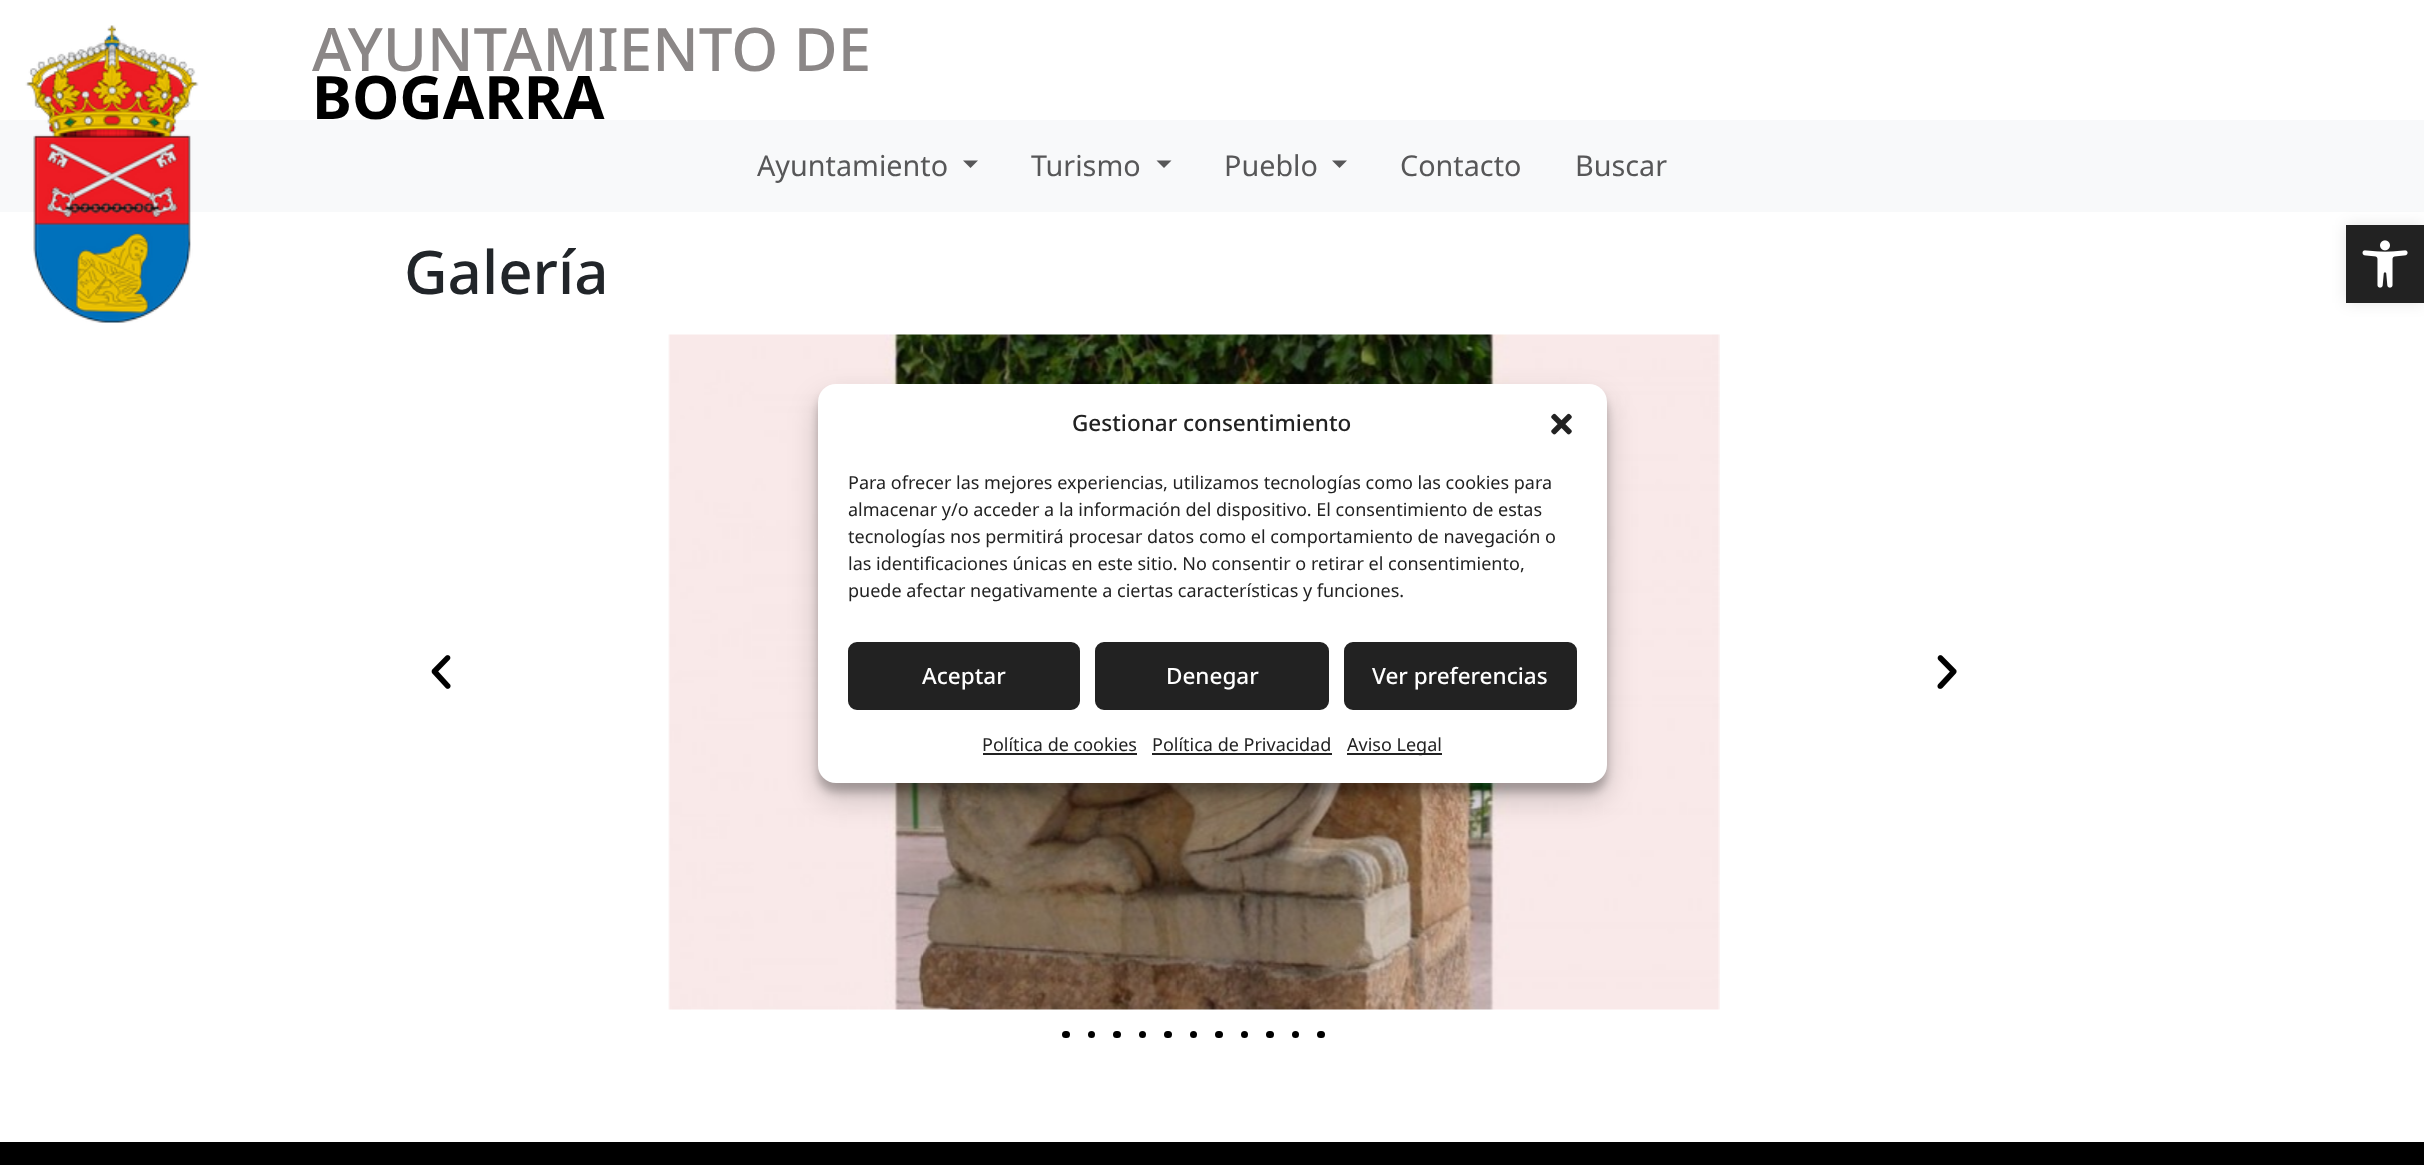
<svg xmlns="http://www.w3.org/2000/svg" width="2424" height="1165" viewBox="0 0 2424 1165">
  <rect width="100%" height="100%" fill="rgb(255,255,255)"/>
  <rect x="0" y="120" width="2424" height="92" fill="rgb(248,249,250)"/>
  <image x="25" y="25" width="174" height="298" href="pic1.png"/>
  <text x="312" y="71" font-family="Noto Sans" font-size="60" font-weight="500" fill="rgb(139,135,135)">AYUNTAMIENTO DE</text>
  <text x="312" y="119" font-family="Noto Sans" font-size="60" font-weight="bold" fill="rgb(0,0,0)">BOGARRA</text>
  <text x="757" y="176" font-family="Noto Sans" font-size="28.75" fill="rgb(87,87,88)">Ayuntamiento</text>
  <path d="M963 160.5H978L970.5 168Z" fill="rgb(87,87,88)"/>
  <text x="1031" y="176" font-family="Noto Sans" font-size="28.75" fill="rgb(87,87,88)">Turismo</text>
  <path d="M1156.5 160.5H1171.5L1164 168Z" fill="rgb(87,87,88)"/>
  <text x="1224" y="176" font-family="Noto Sans" font-size="28.75" fill="rgb(87,87,88)">Pueblo</text>
  <path d="M1332 160.5H1347L1339.5 168Z" fill="rgb(87,87,88)"/>
  <g font-family="Noto Sans" font-size="28.75" fill="rgb(87,87,88)">
    <text x="1400" y="176">Contacto</text>
    <text x="1575" y="176">Buscar</text>
  </g>
  <text x="404" y="294" font-family="Noto Sans" font-size="60" font-weight="500" fill="rgb(33,37,41)">Galería</text>
  <image x="431" y="655" width="20" height="34" href="pic2.png"/>
  <image x="668" y="334" width="1052" height="676" href="pic3.png"/>
  <image x="1937" y="655" width="20" height="34" href="pic4.png"/>
  <rect x="1062" y="1031" width="8" height="7" rx="3.5" fill="rgb(0,0,0)"/>
  <circle cx="1091.5" cy="1034.5" r="3.5" fill="rgb(0,0,0)"/>
  <rect x="1113" y="1031" width="8" height="7" rx="3.5" fill="rgb(0,0,0)"/>
  <circle cx="1142.5" cy="1034.5" r="3.5" fill="rgb(0,0,0)"/>
  <rect x="1164" y="1031" width="8" height="7" rx="3.5" fill="rgb(0,0,0)"/>
  <circle cx="1193.5" cy="1034.5" r="3.5" fill="rgb(0,0,0)"/>
  <rect x="1215" y="1031" width="8" height="7" rx="3.5" fill="rgb(0,0,0)"/>
  <circle cx="1244.5" cy="1034.5" r="3.5" fill="rgb(0,0,0)"/>
  <rect x="1266" y="1031" width="8" height="7" rx="3.5" fill="rgb(0,0,0)"/>
  <circle cx="1295.5" cy="1034.5" r="3.5" fill="rgb(0,0,0)"/>
  <rect x="1317" y="1031" width="8" height="7" rx="3.5" fill="rgb(0,0,0)"/>
  <rect x="0" y="1142" width="2424" height="23" fill="rgb(0,0,0)"/>
  <rect x="2346" y="225" width="78" height="78" fill="rgba(0,0,0,0.1)" filter="blur(7.5px)"/>
  <rect x="2346" y="225" width="78" height="78" fill="rgb(34,34,34)"/>
  <image x="2362" y="240" width="46" height="48" href="pic5.png"/>
  <rect x="818" y="393" width="789" height="399" rx="18" fill="rgba(0,0,0,0.23)" filter="blur(4.5px)"/>
  <rect x="818" y="399" width="789" height="399" rx="18" fill="rgba(0,0,0,0.19)" filter="blur(15px)"/>
  <rect x="818" y="384" width="789" height="399" rx="18" fill="rgb(255,255,255)"/>
  <text x="1072" y="431" font-family="Noto Sans" font-size="22.5" font-weight="500" fill="rgb(34,34,34)">Gestionar consentimiento</text>
  <image x="1551" y="413" width="21" height="22" href="pic6.png"/>
  <g font-family="Noto Sans" font-size="18" fill="rgb(34,34,34)">
    <text>
      <tspan x="848" y="489">Para ofrecer las mejores experiencias, utilizamos tecnologías como las cookies para</tspan>
      <tspan x="848" y="516">almacenar y/o acceder a la información del dispositivo. El consentimiento de estas</tspan>
      <tspan x="848" y="543">tecnologías nos permitirá procesar datos como el comportamiento de navegación o</tspan>
      <tspan x="848" y="570">las identificaciones únicas en este sitio. No consentir o retirar el consentimiento,</tspan>
      <tspan x="848" y="597">puede afectar negativamente a ciertas características y funciones.</tspan>
    </text>
  </g>
  <rect x="849" y="643" width="230" height="66" rx="8" fill="rgb(34,34,34)" stroke="rgb(34,34,34)" stroke-width="2"/>
  <text x="922" y="684" font-family="Noto Sans" font-size="22.5" font-weight="500" fill="rgb(255,255,255)">Aceptar</text>
  <rect x="1096" y="643" width="232" height="66" rx="8" fill="rgb(34,34,34)" stroke="rgb(34,34,34)" stroke-width="2"/>
  <text x="1166" y="684" font-family="Noto Sans" font-size="22.5" font-weight="500" fill="rgb(255,255,255)">Denegar</text>
  <rect x="1345" y="643" width="231" height="66" rx="8" fill="rgb(34,34,34)" stroke="rgb(34,34,34)" stroke-width="2"/>
  <text x="1372" y="684" font-family="Noto Sans" font-size="22.5" font-weight="500" fill="rgb(255,255,255)">Ver preferencias</text>
  <text x="982" y="751" font-family="Noto Sans" font-size="18" fill="rgb(34,34,34)">Política de cookies</text>
  <rect x="983" y="753" width="154" height="2" fill="rgb(34,34,34)"/>
  <text x="1152" y="751" font-family="Noto Sans" font-size="18" fill="rgb(34,34,34)">Política de Privacidad</text>
  <rect x="1152" y="753" width="180" height="2" fill="rgb(34,34,34)"/>
  <rect x="1347" y="753" width="95" height="2" fill="rgb(34,34,34)"/>
  <text x="1347" y="751" font-family="Noto Sans" font-size="18" fill="rgb(34,34,34)">Aviso Legal</text>
</svg>
